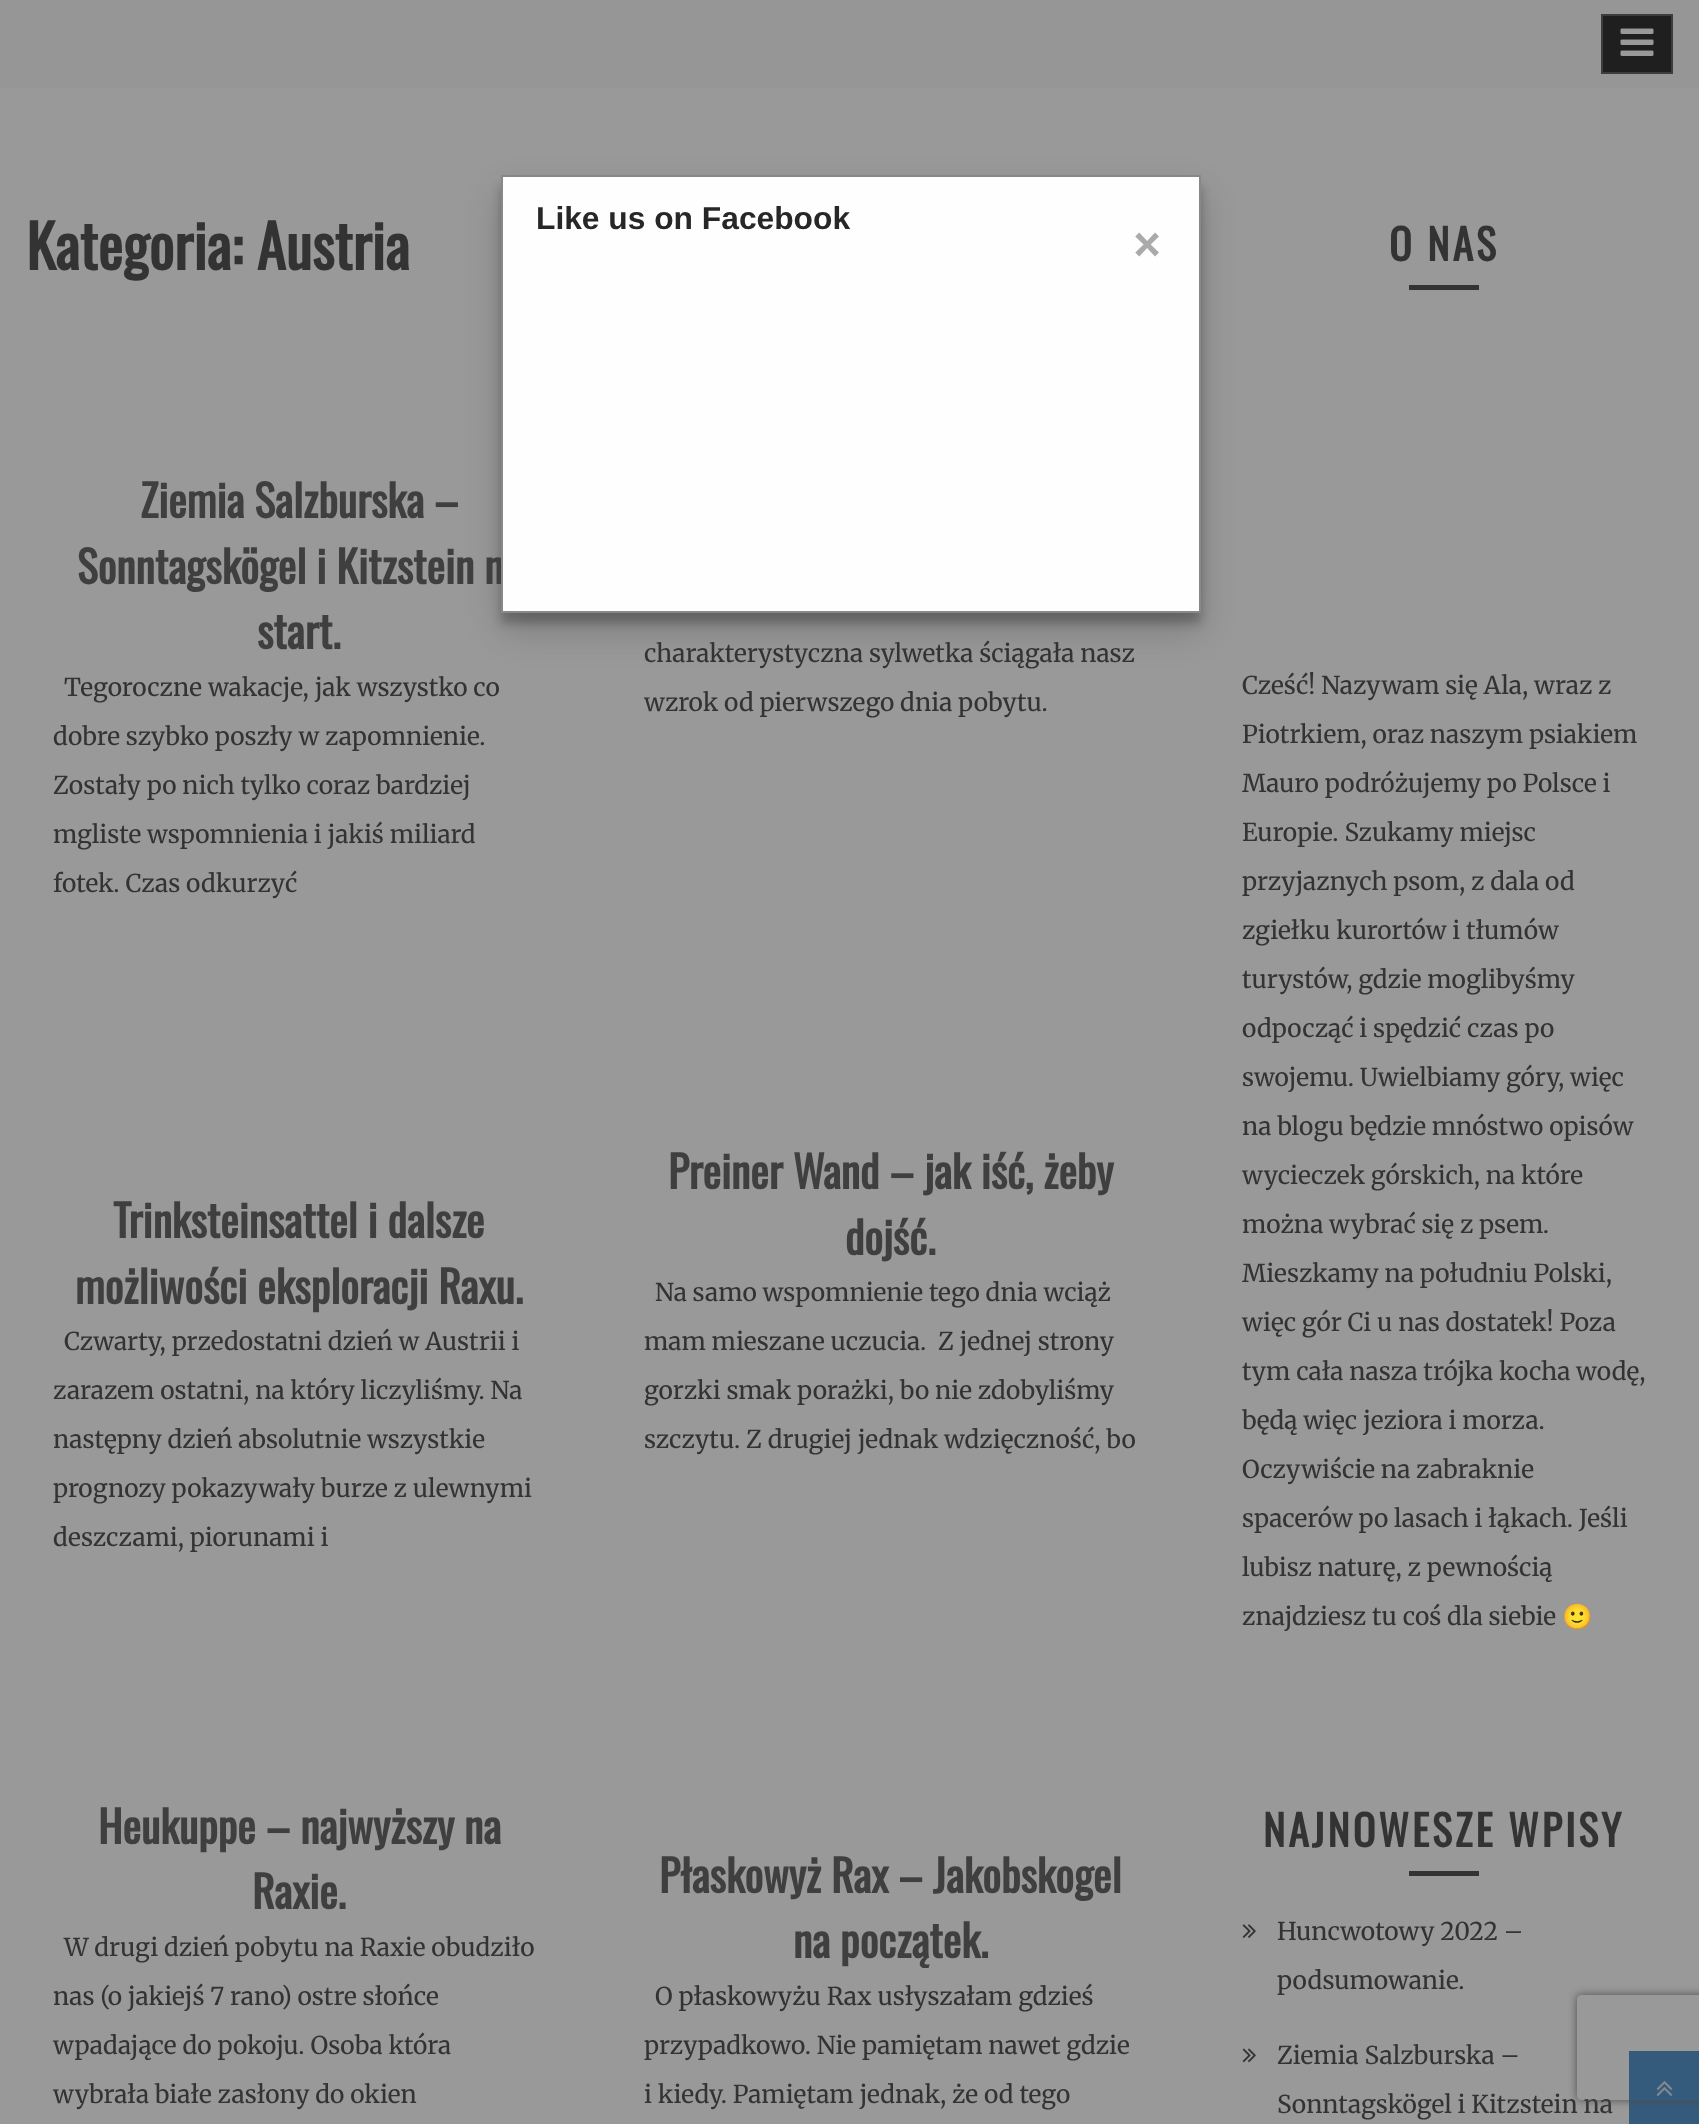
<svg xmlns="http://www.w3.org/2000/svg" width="1699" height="2124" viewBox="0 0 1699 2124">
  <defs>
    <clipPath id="clip1"><path d="M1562 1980H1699V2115H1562ZM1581 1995H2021C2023 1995 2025 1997 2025 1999V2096C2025 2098 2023 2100 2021 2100H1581C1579 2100 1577 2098 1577 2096V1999C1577 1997 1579 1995 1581 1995Z" clip-rule="evenodd"/></clipPath>
  </defs>
  <rect width="100%" height="100%" fill="rgb(153,153,153)"/>
  <rect x="501" y="186" width="700" height="437" fill="rgba(0,0,0,0.23)" filter="blur(5px)"/>
  <rect x="501" y="193" width="700" height="437" fill="rgba(0,0,0,0.19)" filter="blur(17.5px)"/>
  <text x="77" y="584" font-family="Oswald" font-size="43.75" font-weight="bold" fill="rgb(63,63,63)">Sonntagskögel i Kitzstein n</text>
  <rect x="502" y="176" width="698" height="436" fill="rgb(254,254,254)" stroke="rgb(136,136,136)" stroke-width="2"/>
  <text x="536" y="229" font-family="Liberation Sans" font-size="31.75" font-weight="bold" fill="rgb(39,39,39)">Like us on Facebook</text>
  <text x="1130" y="261" font-family="Merriweather" font-size="49" font-weight="bold" fill="rgb(170,170,170)">×</text>
  <rect x="0" y="0" width="1699" height="88" fill="rgb(150,150,150)"/>
  <rect x="1602" y="15" width="70" height="58" fill="rgb(31,31,31)" stroke="rgb(61,61,61)" stroke-width="2"/>
  <image x="1620" y="28" width="34" height="28" href="pic1.png"/>
  <text x="26" y="270" font-family="Oswald" font-size="59.5" font-weight="bold" fill="rgb(51,51,51)">Kategoria: Austria</text>
  <g font-family="Oswald" font-size="43.75" font-weight="bold" fill="rgb(63,63,63)">
    <text x="140" y="518">Ziemia Salzburska –</text>
    <text x="257" y="649">start.</text>
  </g>
  <g font-family="Merriweather" font-size="24.5" font-weight="300" fill="rgb(51,51,51)">
    <text x="64" y="696">Tegoroczne wakacje, jak wszystko co</text>
    <text x="53" y="745">dobre szybko poszły w zapomnienie.</text>
    <text x="53" y="794">Zostały po nich tylko coraz bardziej</text>
    <text x="53" y="843">mgliste wspomnienia i jakiś miliard</text>
    <text x="53" y="892">fotek. Czas odkurzyć</text>
    <text x="644" y="662">charakterystyczna sylwetka ściągała nasz</text>
    <text x="644" y="711">wzrok od pierwszego dnia pobytu.</text>
  </g>
  <g font-family="Oswald" font-size="43.75" font-weight="bold" fill="rgb(63,63,63)">
    <text x="113" y="1238">Trinksteinsattel i dalsze</text>
    <text x="75" y="1304">możliwości eksploracji Raxu.</text>
  </g>
  <g font-family="Merriweather" font-size="24.5" font-weight="300" fill="rgb(51,51,51)">
    <text x="64" y="1350">Czwarty, przedostatni dzień w Austrii i</text>
    <text x="53" y="1399">zarazem ostatni, na który liczyliśmy. Na</text>
    <text x="53" y="1448">następny dzień absolutnie wszystkie</text>
    <text x="53" y="1497">prognozy pokazywały burze z ulewnymi</text>
    <text x="53" y="1546">deszczami, piorunami i</text>
  </g>
  <g font-family="Oswald" font-size="43.75" font-weight="bold" fill="rgb(63,63,63)">
    <text x="668" y="1189">Preiner Wand – jak iść, żeby</text>
    <text x="845" y="1255">dojść.</text>
  </g>
  <g font-family="Merriweather" font-size="24.5" font-weight="300" fill="rgb(51,51,51)">
    <text x="655" y="1301">Na samo wspomnienie tego dnia wciąż</text>
    <text x="644" y="1350" xml:space="preserve">mam mieszane uczucia.  Z jednej strony</text>
    <text x="644" y="1399">gorzki smak porażki, bo nie zdobyliśmy</text>
    <text x="644" y="1448">szczytu. Z drugiej jednak wdzięczność, bo</text>
  </g>
  <g font-family="Oswald" font-size="43.75" font-weight="bold" fill="rgb(63,63,63)">
    <text x="98" y="1844">Heukuppe – najwyższy na</text>
    <text x="252" y="1909">Raxie.</text>
  </g>
  <g font-family="Merriweather" font-size="24.5" font-weight="300" fill="rgb(51,51,51)">
    <text x="64" y="1956">W drugi dzień pobytu na Raxie obudziło</text>
    <text x="53" y="2005">nas (o jakiejś 7 rano) ostre słońce</text>
    <text x="53" y="2054">wpadające do pokoju. Osoba która</text>
    <text x="53" y="2103">wybrała białe zasłony do okien</text>
  </g>
  <g font-family="Oswald" font-size="43.75" font-weight="bold" fill="rgb(63,63,63)">
    <text x="659" y="1893">Płaskowyż Rax – Jakobskogel</text>
    <text x="793" y="1958">na początek.</text>
  </g>
  <g font-family="Merriweather" font-size="24.5" font-weight="300" fill="rgb(51,51,51)">
    <text x="655" y="2005">O płaskowyżu Rax usłyszałam gdzieś</text>
    <text x="644" y="2054">przypadkowo. Nie pamiętam nawet gdzie</text>
    <text x="644" y="2103">i kiedy. Pamiętam jednak, że od tego</text>
  </g>
  <text x="1389" y="261" font-family="Oswald" font-size="42" font-weight="bold" letter-spacing="3" fill="rgb(51,51,51)">O NAS</text>
  <rect x="1409" y="285" width="70" height="5" fill="rgb(51,51,51)"/>
  <g font-family="Merriweather" font-size="24.5" font-weight="300" fill="rgb(51,51,51)">
    <text x="1242" y="694">Cześć! Nazywam się Ala, wraz z</text>
    <text x="1242" y="743">Piotrkiem, oraz naszym psiakiem</text>
    <text x="1242" y="792">Mauro podróżujemy po Polsce i</text>
    <text x="1242" y="841">Europie. Szukamy miejsc</text>
    <text x="1242" y="890">przyjaznych psom, z dala od</text>
    <text x="1242" y="939">zgiełku kurortów i tłumów</text>
    <text x="1242" y="988">turystów, gdzie moglibyśmy</text>
    <text x="1242" y="1037">odpocząć i spędzić czas po</text>
    <text x="1242" y="1086">swojemu. Uwielbiamy góry, więc</text>
    <text x="1242" y="1135">na blogu będzie mnóstwo opisów</text>
    <text x="1242" y="1184">wycieczek górskich, na które</text>
    <text x="1242" y="1233">można wybrać się z psem.</text>
    <text x="1242" y="1282">Mieszkamy na południu Polski,</text>
    <text x="1242" y="1331">więc gór Ci u nas dostatek! Poza</text>
    <text x="1242" y="1380">tym cała nasza trójka kocha wodę,</text>
    <text x="1242" y="1429">będą więc jeziora i morza.</text>
    <text x="1242" y="1478">Oczywiście na zabraknie</text>
    <text x="1242" y="1527">spacerów po lasach i łąkach. Jeśli</text>
    <text x="1242" y="1576">lubisz naturę, z pewnością</text>
    <text x="1242" y="1625">znajdziesz tu coś dla siebie</text>
  </g>
  <text x="1562" y="1625" font-family="Noto Color Emoji" font-size="24.5" fill="rgb(51,51,51)">🙂</text>
  <text x="1263" y="1847" font-family="Oswald" font-size="42" font-weight="bold" letter-spacing="3" fill="rgb(51,51,51)">NAJNOWESZE WPISY</text>
  <rect x="1409" y="1871" width="70" height="5" fill="rgb(51,51,51)"/>
  <image x="1242" y="1924" width="14" height="14" href="pic2.png"/>
  <g font-family="Merriweather" font-size="24.5" font-weight="300" fill="rgb(51,51,51)">
    <text x="1277" y="1940">Huncwotowy 2022 –</text>
    <text x="1277" y="1989">podsumowanie.</text>
  </g>
  <image x="1242" y="2048" width="14" height="15" href="pic3.png"/>
  <g font-family="Merriweather" font-size="24.5" font-weight="300" fill="rgb(51,51,51)">
    <text x="1277" y="2064">Ziemia Salzburska –</text>
    <text x="1277" y="2113">Sonntagskögel i Kitzstein na</text>
  </g>
  <rect x="1629" y="2051" width="70" height="73" fill="rgb(52,90,124)"/>
  <image x="1656" y="2081" width="17" height="15" href="pic4.png"/>
  <g clip-path="url(#clip1)">
    <rect x="1577" y="1995" width="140" height="105" rx="4" fill="rgb(77,77,77)" filter="blur(4.5px)"/>
  </g>
</svg>
